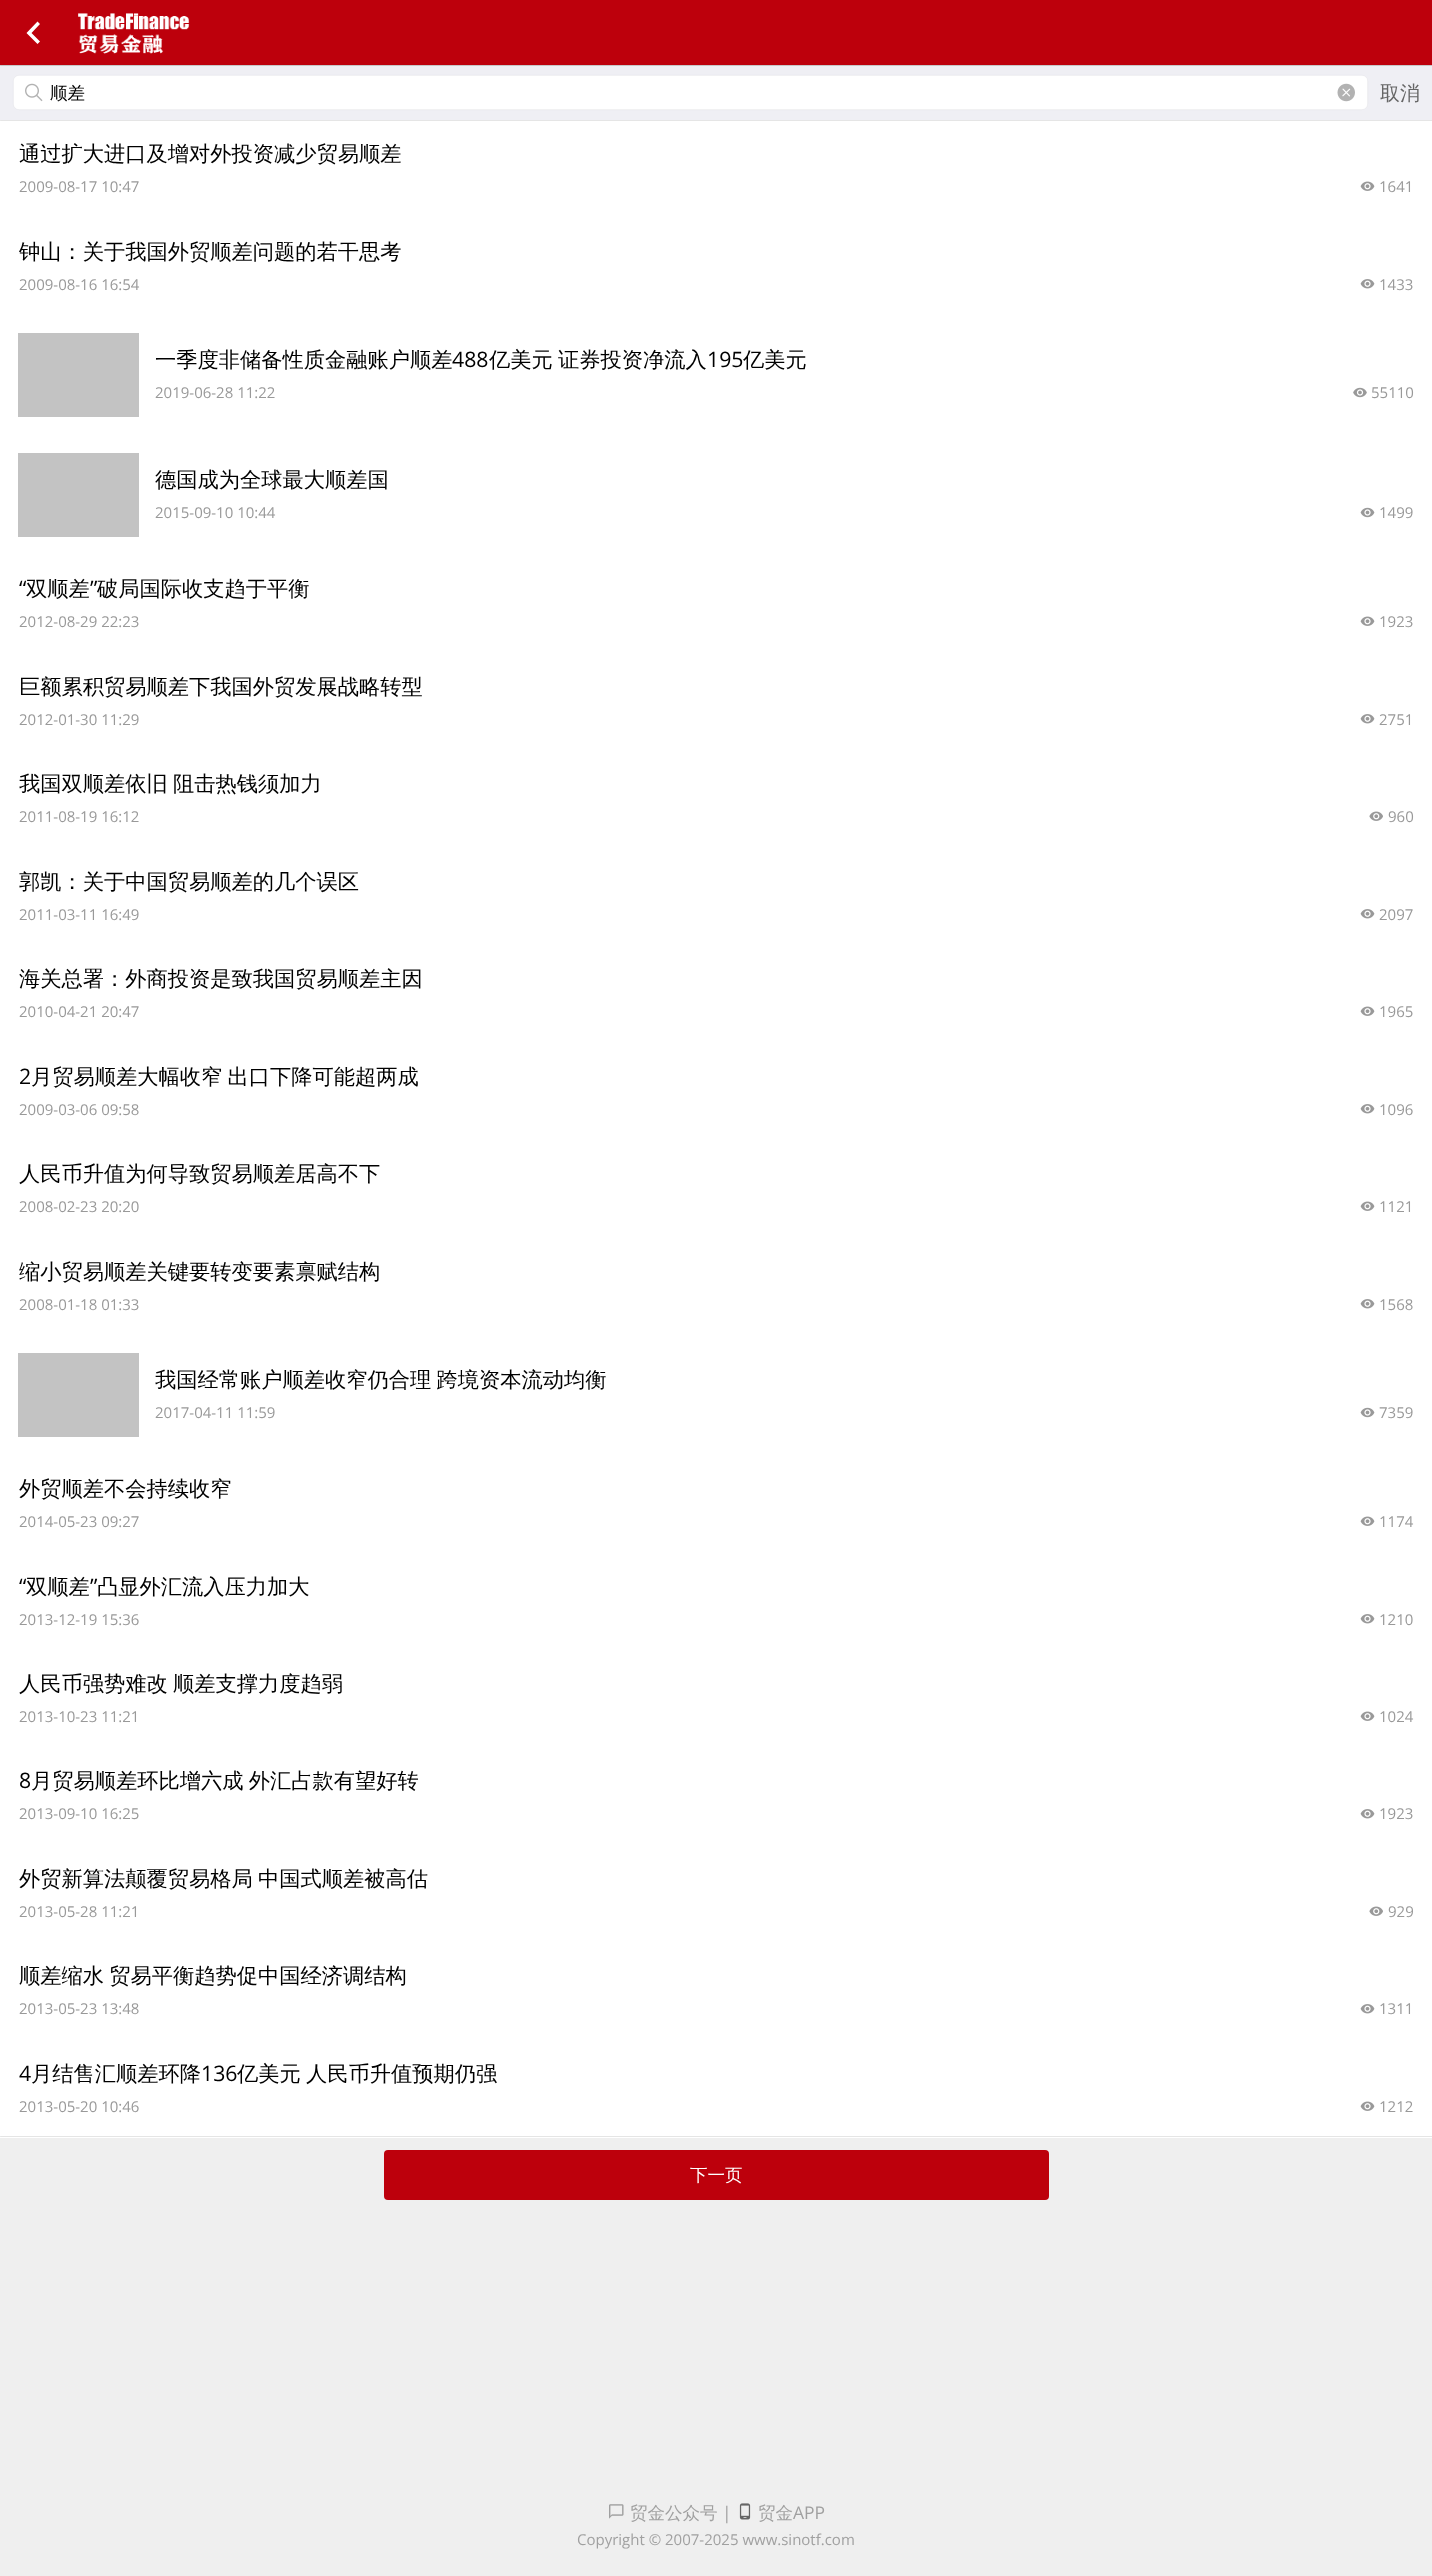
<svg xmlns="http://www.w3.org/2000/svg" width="1432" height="2576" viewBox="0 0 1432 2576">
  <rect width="100%" height="100%" fill="rgb(239,239,239)"/>
  <rect x="0" y="0" width="1432" height="65" fill="rgb(189,0,12)"/>
  <path d="M40 41.5L37.5 44L26.5 33L37.5 21.5L40 24L31.5 33Z" fill="rgb(255,255,255)"/>
  <image x="78" y="13" width="112" height="41" href="pic1.png"/>
  <rect x="0" y="65" width="1432" height="55" fill="rgb(239,239,244)"/>
  <rect x="0" y="65" width="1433" height="1" rx="0.5" fill="rgb(199,199,199)"/>
  <rect x="13.3" y="75.3" width="1354.4" height="34.4" rx="5.7" fill="rgb(255,255,255)" stroke="rgb(230,230,234)" stroke-width="0.6"/>
  <image x="25" y="83" width="18" height="19" href="pic2.png"/>
  <text x="50" y="99" font-family="WenQuanYi Zen Hei" font-size="17.5" font-weight="500" fill="rgb(0,0,0)">顺差</text>
  <image x="1337" y="83" width="18" height="19" href="pic3.png"/>
  <text x="1380" y="100" font-family="WenQuanYi Zen Hei" font-size="20" font-weight="500" fill="rgb(102,102,102)">取消</text>
  <rect x="0" y="120" width="1432" height="2018" fill="rgb(255,255,255)"/>
  <rect x="0" y="120" width="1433" height="1" rx="0.5" fill="rgb(229,229,229)"/>
  <text x="19" y="161" font-family="WenQuanYi Zen Hei" font-size="21.25" font-weight="500" fill="rgb(0,0,0)">通过扩大进口及增对外投资减少贸易顺差</text>
  <text x="19" y="192" font-family="Open Sans" font-size="15" fill="rgb(153,153,153)">2009-08-17 10:47</text>
  <image x="1360" y="181" width="15" height="10" href="pic4.png"/>
  <text x="1379" y="192" font-family="Open Sans" font-size="15" fill="rgb(153,153,153)">1641</text>
  <text x="19" y="259" font-family="WenQuanYi Zen Hei" font-size="21.25" font-weight="500" fill="rgb(0,0,0)">钟山：关于我国外贸顺差问题的若干思考</text>
  <text x="19" y="290" font-family="Open Sans" font-size="15" fill="rgb(153,153,153)">2009-08-16 16:54</text>
  <image x="1360" y="279" width="15" height="10" href="pic5.png"/>
  <text x="1379" y="290" font-family="Open Sans" font-size="15" fill="rgb(153,153,153)">1433</text>
  <rect x="18" y="333" width="121" height="84" fill="rgb(195,195,195)"/>
  <text x="155" y="367" font-family="WenQuanYi Zen Hei" font-size="21.25" font-weight="500" fill="rgb(0,0,0)">一季度非储备性质金融账户顺差</text>
  <text x="452" y="367" font-family="Open Sans" font-size="21.25" fill="rgb(0,0,0)">488</text>
  <text x="489" y="367" word-spacing="-1" font-family="WenQuanYi Zen Hei" font-size="21.25" font-weight="500" fill="rgb(0,0,0)">亿美元 证券投资净流入</text>
  <text x="707" y="367" font-family="Open Sans" font-size="21.25" fill="rgb(0,0,0)">195</text>
  <text x="743" y="367" font-family="WenQuanYi Zen Hei" font-size="21.25" font-weight="500" fill="rgb(0,0,0)">亿美元</text>
  <text x="155" y="398" font-family="Open Sans" font-size="15" fill="rgb(153,153,153)">2019-06-28 11:22</text>
  <image x="1353" y="387" width="14" height="11" href="pic6.png"/>
  <text x="1371" y="398" font-family="Open Sans" font-size="15" fill="rgb(153,153,153)">55110</text>
  <rect x="18" y="453" width="121" height="84" fill="rgb(195,195,195)"/>
  <text x="155" y="487" font-family="WenQuanYi Zen Hei" font-size="21.25" font-weight="500" fill="rgb(0,0,0)">德国成为全球最大顺差国</text>
  <text x="155" y="518" font-family="Open Sans" font-size="15" fill="rgb(153,153,153)">2015-09-10 10:44</text>
  <image x="1360" y="507" width="15" height="11" href="pic7.png"/>
  <text x="1379" y="518" font-family="Open Sans" font-size="15" fill="rgb(153,153,153)">1499</text>
  <text x="19" y="596" font-family="Open Sans" font-size="21.25" fill="rgb(0,0,0)">“</text>
  <text x="26" y="596" font-family="WenQuanYi Zen Hei" font-size="21.25" font-weight="500" fill="rgb(0,0,0)">双顺差</text>
  <text x="90" y="596" font-family="Open Sans" font-size="21.25" fill="rgb(0,0,0)">”</text>
  <text x="97" y="596" font-family="WenQuanYi Zen Hei" font-size="21.25" font-weight="500" fill="rgb(0,0,0)">破局国际收支趋于平衡</text>
  <text x="19" y="627" font-family="Open Sans" font-size="15" fill="rgb(153,153,153)">2012-08-29 22:23</text>
  <image x="1360" y="616" width="15" height="10" href="pic4.png"/>
  <text x="1379" y="627" font-family="Open Sans" font-size="15" fill="rgb(153,153,153)">1923</text>
  <text x="19" y="694" font-family="WenQuanYi Zen Hei" font-size="21.25" font-weight="500" fill="rgb(0,0,0)">巨额累积贸易顺差下我国外贸发展战略转型</text>
  <text x="19" y="725" font-family="Open Sans" font-size="15" fill="rgb(153,153,153)">2012-01-30 11:29</text>
  <image x="1360" y="714" width="15" height="10" href="pic5.png"/>
  <text x="1379" y="725" font-family="Open Sans" font-size="15" fill="rgb(153,153,153)">2751</text>
  <text x="19" y="791" word-spacing="-1" font-family="WenQuanYi Zen Hei" font-size="21.25" font-weight="500" fill="rgb(0,0,0)">我国双顺差依旧 阻击热钱须加力</text>
  <text x="19" y="822" font-family="Open Sans" font-size="15" fill="rgb(153,153,153)">2011-08-19 16:12</text>
  <image x="1369" y="811" width="14" height="10" href="pic8.png"/>
  <text x="1388" y="822" font-family="Open Sans" font-size="15" fill="rgb(153,153,153)">960</text>
  <text x="19" y="889" font-family="WenQuanYi Zen Hei" font-size="21.25" font-weight="500" fill="rgb(0,0,0)">郭凯：关于中国贸易顺差的几个误区</text>
  <text x="19" y="920" font-family="Open Sans" font-size="15" fill="rgb(153,153,153)">2011-03-11 16:49</text>
  <image x="1360" y="909" width="15" height="10" href="pic5.png"/>
  <text x="1379" y="920" font-family="Open Sans" font-size="15" fill="rgb(153,153,153)">2097</text>
  <text x="19" y="986" font-family="WenQuanYi Zen Hei" font-size="21.25" font-weight="500" fill="rgb(0,0,0)">海关总署：外商投资是致我国贸易顺差主因</text>
  <text x="19" y="1017" font-family="Open Sans" font-size="15" fill="rgb(153,153,153)">2010-04-21 20:47</text>
  <image x="1360" y="1006" width="15" height="10" href="pic4.png"/>
  <text x="1379" y="1017" font-family="Open Sans" font-size="15" fill="rgb(153,153,153)">1965</text>
  <text x="19" y="1084" font-family="Open Sans" font-size="21.25" fill="rgb(0,0,0)">2</text>
  <text x="31" y="1084" word-spacing="-1" font-family="WenQuanYi Zen Hei" font-size="21.25" font-weight="500" fill="rgb(0,0,0)">月贸易顺差大幅收窄 出口下降可能超两成</text>
  <text x="19" y="1115" font-family="Open Sans" font-size="15" fill="rgb(153,153,153)">2009-03-06 09:58</text>
  <image x="1360" y="1104" width="15" height="10" href="pic5.png"/>
  <text x="1379" y="1115" font-family="Open Sans" font-size="15" fill="rgb(153,153,153)">1096</text>
  <text x="19" y="1181" font-family="WenQuanYi Zen Hei" font-size="21.25" font-weight="500" fill="rgb(0,0,0)">人民币升值为何导致贸易顺差居高不下</text>
  <text x="19" y="1212" font-family="Open Sans" font-size="15" fill="rgb(153,153,153)">2008-02-23 20:20</text>
  <image x="1360" y="1201" width="15" height="10" href="pic4.png"/>
  <text x="1379" y="1212" font-family="Open Sans" font-size="15" fill="rgb(153,153,153)">1121</text>
  <text x="19" y="1279" font-family="WenQuanYi Zen Hei" font-size="21.25" font-weight="500" fill="rgb(0,0,0)">缩小贸易顺差关键要转变要素禀赋结构</text>
  <text x="19" y="1310" font-family="Open Sans" font-size="15" fill="rgb(153,153,153)">2008-01-18 01:33</text>
  <image x="1360" y="1299" width="15" height="10" href="pic5.png"/>
  <text x="1379" y="1310" font-family="Open Sans" font-size="15" fill="rgb(153,153,153)">1568</text>
  <rect x="18" y="1353" width="121" height="84" fill="rgb(195,195,195)"/>
  <text x="155" y="1387" word-spacing="-1" font-family="WenQuanYi Zen Hei" font-size="21.25" font-weight="500" fill="rgb(0,0,0)">我国经常账户顺差收窄仍合理 跨境资本流动均衡</text>
  <text x="155" y="1418" font-family="Open Sans" font-size="15" fill="rgb(153,153,153)">2017-04-11 11:59</text>
  <image x="1360" y="1407" width="15" height="11" href="pic7.png"/>
  <text x="1379" y="1418" font-family="Open Sans" font-size="15" fill="rgb(153,153,153)">7359</text>
  <text x="19" y="1496" font-family="WenQuanYi Zen Hei" font-size="21.25" font-weight="500" fill="rgb(0,0,0)">外贸顺差不会持续收窄</text>
  <text x="19" y="1527" font-family="Open Sans" font-size="15" fill="rgb(153,153,153)">2014-05-23 09:27</text>
  <image x="1360" y="1516" width="15" height="10" href="pic4.png"/>
  <text x="1379" y="1527" font-family="Open Sans" font-size="15" fill="rgb(153,153,153)">1174</text>
  <text x="19" y="1594" font-family="Open Sans" font-size="21.25" fill="rgb(0,0,0)">“</text>
  <text x="26" y="1594" font-family="WenQuanYi Zen Hei" font-size="21.25" font-weight="500" fill="rgb(0,0,0)">双顺差</text>
  <text x="90" y="1594" font-family="Open Sans" font-size="21.25" fill="rgb(0,0,0)">”</text>
  <text x="97" y="1594" font-family="WenQuanYi Zen Hei" font-size="21.25" font-weight="500" fill="rgb(0,0,0)">凸显外汇流入压力加大</text>
  <text x="19" y="1625" font-family="Open Sans" font-size="15" fill="rgb(153,153,153)">2013-12-19 15:36</text>
  <image x="1360" y="1614" width="15" height="10" href="pic5.png"/>
  <text x="1379" y="1625" font-family="Open Sans" font-size="15" fill="rgb(153,153,153)">1210</text>
  <text x="19" y="1691" word-spacing="-1" font-family="WenQuanYi Zen Hei" font-size="21.25" font-weight="500" fill="rgb(0,0,0)">人民币强势难改 顺差支撑力度趋弱</text>
  <text x="19" y="1722" font-family="Open Sans" font-size="15" fill="rgb(153,153,153)">2013-10-23 11:21</text>
  <image x="1360" y="1711" width="15" height="10" href="pic4.png"/>
  <text x="1379" y="1722" font-family="Open Sans" font-size="15" fill="rgb(153,153,153)">1024</text>
  <text x="19" y="1788" font-family="Open Sans" font-size="21.25" fill="rgb(0,0,0)">8</text>
  <text x="31" y="1788" word-spacing="-1" font-family="WenQuanYi Zen Hei" font-size="21.25" font-weight="500" fill="rgb(0,0,0)">月贸易顺差环比增六成 外汇占款有望好转</text>
  <text x="19" y="1819" font-family="Open Sans" font-size="15" fill="rgb(153,153,153)">2013-09-10 16:25</text>
  <image x="1360" y="1809" width="15" height="10" href="pic5.png"/>
  <text x="1379" y="1819" font-family="Open Sans" font-size="15" fill="rgb(153,153,153)">1923</text>
  <text x="19" y="1886" word-spacing="-1" font-family="WenQuanYi Zen Hei" font-size="21.25" font-weight="500" fill="rgb(0,0,0)">外贸新算法颠覆贸易格局 中国式顺差被高估</text>
  <text x="19" y="1917" font-family="Open Sans" font-size="15" fill="rgb(153,153,153)">2013-05-28 11:21</text>
  <image x="1369" y="1906" width="14" height="10" href="pic8.png"/>
  <text x="1388" y="1917" font-family="Open Sans" font-size="15" fill="rgb(153,153,153)">929</text>
  <text x="19" y="1983" word-spacing="-1" font-family="WenQuanYi Zen Hei" font-size="21.25" font-weight="500" fill="rgb(0,0,0)">顺差缩水 贸易平衡趋势促中国经济调结构</text>
  <text x="19" y="2014" font-family="Open Sans" font-size="15" fill="rgb(153,153,153)">2013-05-23 13:48</text>
  <image x="1360" y="2004" width="15" height="10" href="pic5.png"/>
  <text x="1379" y="2014" font-family="Open Sans" font-size="15" fill="rgb(153,153,153)">1311</text>
  <text x="19" y="2081" font-family="Open Sans" font-size="21.25" fill="rgb(0,0,0)">4</text>
  <text x="31" y="2081" font-family="WenQuanYi Zen Hei" font-size="21.25" font-weight="500" fill="rgb(0,0,0)">月结售汇顺差环降</text>
  <text x="201" y="2081" font-family="Open Sans" font-size="21.25" fill="rgb(0,0,0)">136</text>
  <text x="237" y="2081" word-spacing="-1" font-family="WenQuanYi Zen Hei" font-size="21.25" font-weight="500" fill="rgb(0,0,0)">亿美元 人民币升值预期仍强</text>
  <text x="19" y="2112" font-family="Open Sans" font-size="15" fill="rgb(153,153,153)">2013-05-20 10:46</text>
  <image x="1360" y="2101" width="15" height="10" href="pic4.png"/>
  <text x="1379" y="2112" font-family="Open Sans" font-size="15" fill="rgb(153,153,153)">1212</text>
  <rect x="0" y="2136" width="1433" height="1" rx="0.5" fill="rgb(229,229,229)"/>
  <rect x="384" y="2150" width="665" height="50" rx="4" fill="rgb(189,0,12)"/>
  <text x="690" y="2181" font-family="WenQuanYi Zen Hei" font-size="17.5" font-weight="500" fill="rgb(255,255,255)">下一页</text>
  <image x="609" y="2504" width="15" height="15" href="pic9.png"/>
  <text x="630" y="2519" font-family="WenQuanYi Zen Hei" font-size="17.5" font-weight="500" fill="rgb(160,160,160)">贸金公众号</text>
  <text x="722" y="2519" font-family="Open Sans" font-size="17.5" fill="rgb(160,160,160)">|</text>
  <image x="739" y="2503" width="12" height="17" href="pic10.png"/>
  <text x="758" y="2519" font-family="WenQuanYi Zen Hei" font-size="17.5" font-weight="500" fill="rgb(160,160,160)">贸金</text>
  <text x="793" y="2519" font-family="Open Sans" font-size="17.5" fill="rgb(160,160,160)">APP</text>
  <text x="577" y="2545" font-family="Open Sans" font-size="15" fill="rgb(160,160,160)">Copyright © 2007-2025 www.sinotf.com</text>
</svg>
